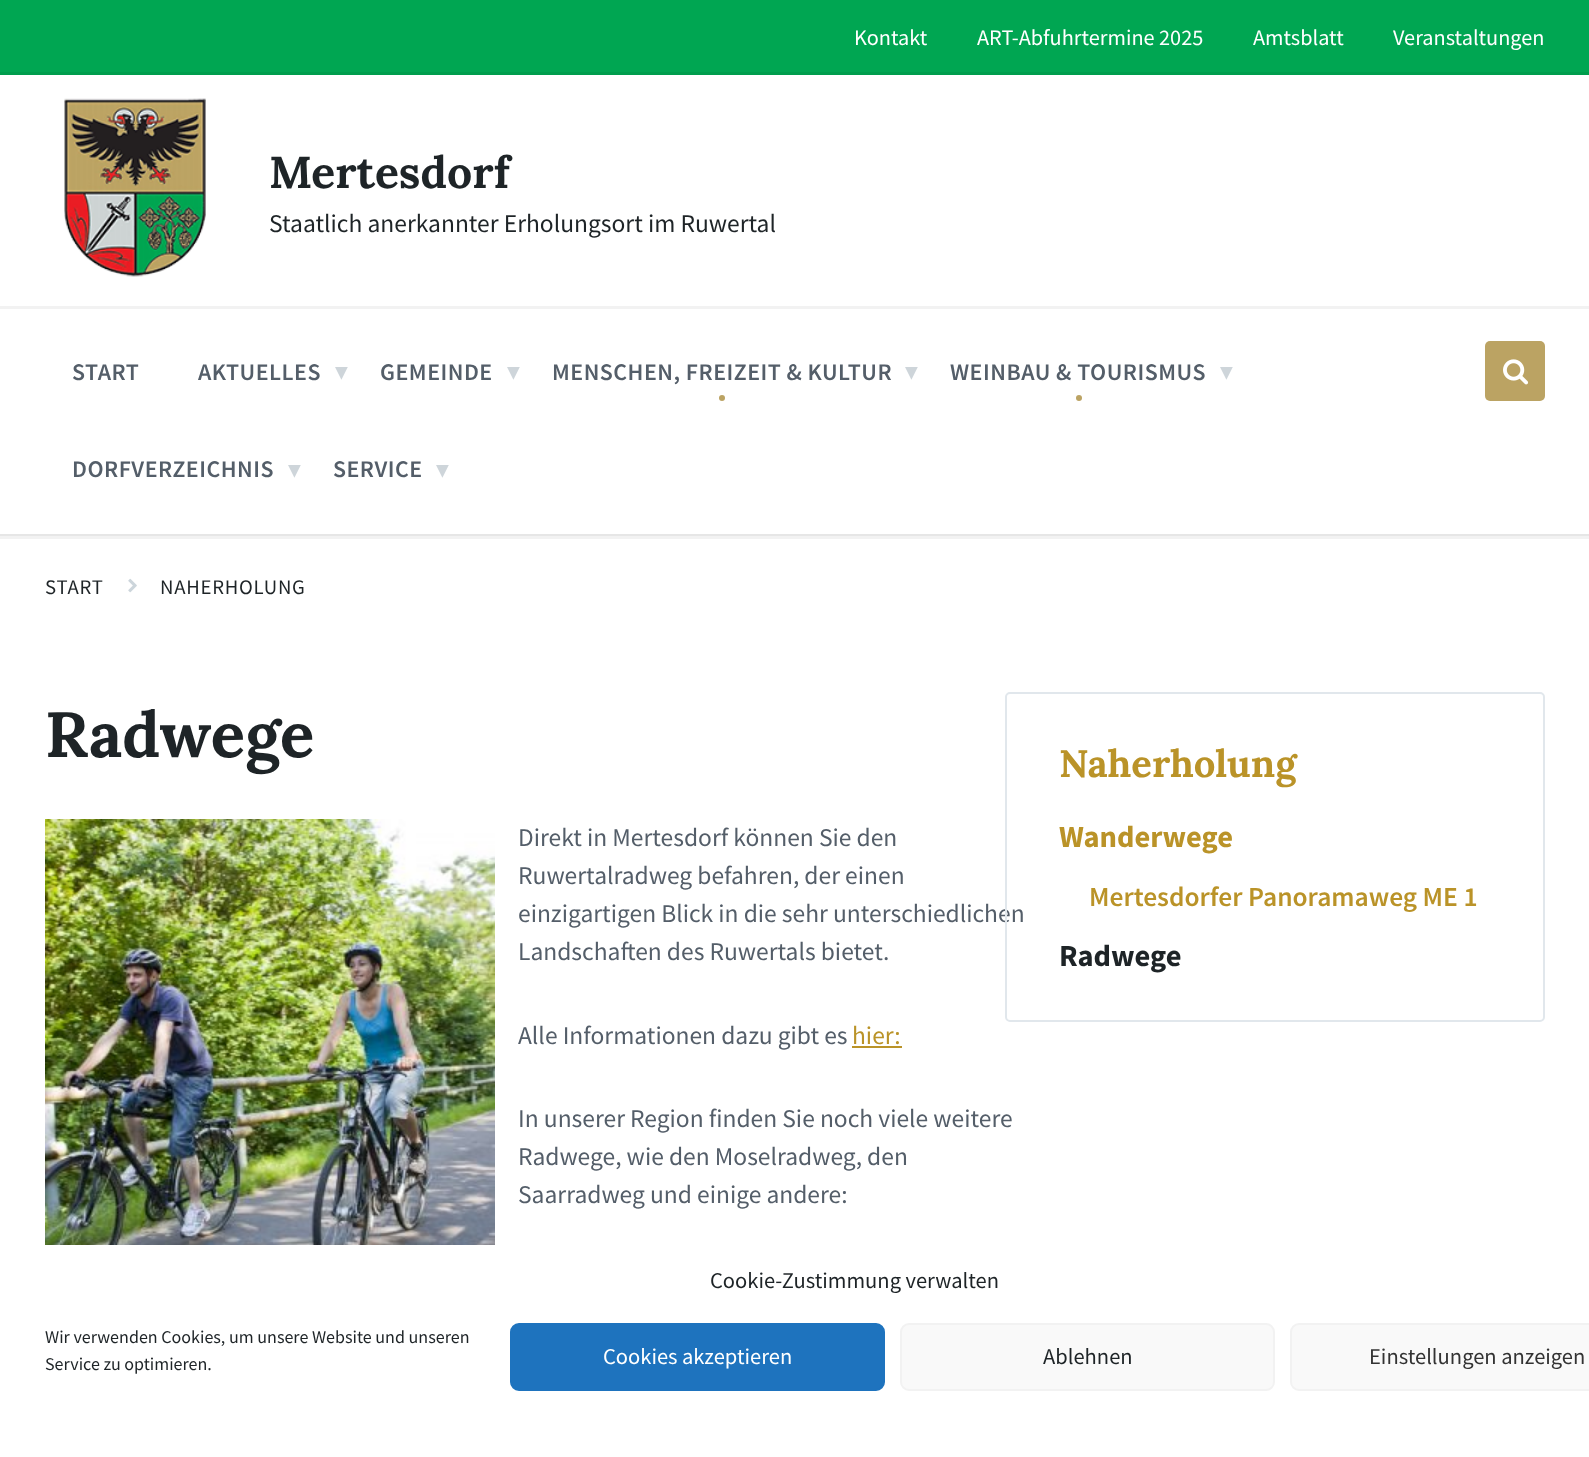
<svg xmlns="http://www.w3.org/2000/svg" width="1589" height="1457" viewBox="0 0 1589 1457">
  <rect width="100%" height="100%" fill="rgb(255,255,255)"/>
  <rect x="0" y="0" width="1589" height="75" fill="rgb(0,166,82)"/>
  <g font-family="Source Sans Pro" font-size="22.25" fill="rgb(255,255,255)">
    <text x="854" y="45">Kontakt</text>
    <text x="977" y="45">ART-Abfuhrtermine 2025</text>
    <text x="1253" y="45">Amtsblatt</text>
    <text x="1393" y="45">Veranstaltungen</text>
  </g>
  <rect x="-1.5" y="304.5" width="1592" height="233" fill="none" stroke="rgb(242,242,242)" stroke-width="3"/>
  <rect x="-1.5" y="73.5" width="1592" height="234" fill="none" stroke="rgba(0,0,0,0.05)" stroke-width="3"/>
  <rect x="0" y="303" width="1589" height="3" fill="rgb(255,255,255)"/>
  <image x="64" y="98" width="142" height="179" href="pic1.png"/>
  <text x="269" y="188" font-family="Lora" font-size="44.5" font-weight="bold" fill="rgb(30,36,39)">Mertesdorf</text>
  <text x="269" y="232" font-family="Source Sans Pro" font-size="25.5" fill="rgb(30,36,39)">Staatlich anerkannter Erholungsort im Ruwertal</text>
  <rect x="0" y="534" width="1589" height="2" fill="rgb(230,230,230)"/>
  <g font-family="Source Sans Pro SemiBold" font-size="23.9" font-weight="600" letter-spacing="0.5" fill="rgb(84,94,105)">
    <text x="72" y="380">START</text>
    <text x="198" y="380">AKTUELLES</text>
  </g>
  <text x="335" y="380" font-family="DejaVu Sans" font-size="25.5" fill="rgb(206,213,218)">▾</text>
  <text x="380" y="380" font-family="Source Sans Pro SemiBold" font-size="23.9" font-weight="600" letter-spacing="0.5" fill="rgb(84,94,105)">GEMEINDE</text>
  <text x="507" y="380" font-family="DejaVu Sans" font-size="25.5" fill="rgb(206,213,218)">▾</text>
  <text x="552" y="380" font-family="Source Sans Pro SemiBold" font-size="23.9" font-weight="600" letter-spacing="0.5" fill="rgb(84,94,105)">MENSCHEN, FREIZEIT &amp; KULTUR</text>
  <circle cx="722" cy="398" r="3" fill="rgb(187,163,99)"/>
  <text x="905" y="380" font-family="DejaVu Sans" font-size="25.5" fill="rgb(206,213,218)">▾</text>
  <text x="950" y="380" font-family="Source Sans Pro SemiBold" font-size="23.9" font-weight="600" letter-spacing="0.5" fill="rgb(84,94,105)">WEINBAU &amp; TOURISMUS</text>
  <circle cx="1079" cy="398" r="3" fill="rgb(187,163,99)"/>
  <text x="1220" y="380" font-family="DejaVu Sans" font-size="25.5" fill="rgb(206,213,218)">▾</text>
  <text x="72" y="477" font-family="Source Sans Pro SemiBold" font-size="23.9" font-weight="600" letter-spacing="0.5" fill="rgb(84,94,105)">DORFVERZEICHNIS</text>
  <text x="288" y="478" font-family="DejaVu Sans" font-size="25.5" fill="rgb(206,213,218)">▾</text>
  <text x="333" y="477" font-family="Source Sans Pro SemiBold" font-size="23.9" font-weight="600" letter-spacing="0.5" fill="rgb(84,94,105)">SERVICE</text>
  <text x="436" y="478" font-family="DejaVu Sans" font-size="25.5" fill="rgb(206,213,218)">▾</text>
  <rect x="1485" y="341" width="60" height="60" rx="5" fill="rgb(187,163,99)"/>
  <image x="1503" y="359" width="26" height="26" href="pic2.png"/>
  <text x="45" y="594" font-family="Source Sans Pro" font-size="20.75" letter-spacing="0.75" fill="rgb(30,36,39)">START</text>
  <image x="128" y="578" width="9" height="15" href="pic3.png"/>
  <text x="160" y="594" font-family="Source Sans Pro" font-size="20.75" letter-spacing="0.75" fill="rgb(30,36,39)">NAHERHOLUNG</text>
  <text x="45" y="757" font-family="Lora" font-size="63.75" font-weight="bold" fill="rgb(30,36,39)">Radwege</text>
  <image x="45" y="819" width="450" height="426" href="pic4.png"/>
  <g font-family="Source Sans Pro" font-size="25.5" fill="rgb(84,94,105)">
    <text>
      <tspan x="518" y="846">Direkt in Mertesdorf können Sie den</tspan>
      <tspan x="518" y="884">Ruwertalradweg befahren, der einen</tspan>
      <tspan x="518" y="922">einzigartigen Blick in die sehr unterschiedlichen</tspan>
      <tspan x="518" y="960">Landschaften des Ruwertals bietet.</tspan>
    </text>
    <text x="518" y="1044">Alle Informationen dazu gibt es</text>
  </g>
  <text x="852" y="1044" font-family="Source Sans Pro" font-size="25.5" fill="rgb(186,147,40)">hier:</text>
  <rect x="852" y="1046" width="50" height="2" fill="rgb(186,147,40)"/>
  <g font-family="Source Sans Pro" font-size="25.5" fill="rgb(84,94,105)">
    <text>
      <tspan x="518" y="1127">In unserer Region finden Sie noch viele weitere</tspan>
      <tspan x="518" y="1165">Radwege, wie den Moselradweg, den</tspan>
      <tspan x="518" y="1203">Saarradweg und einige andere:</tspan>
    </text>
  </g>
  <rect x="1006" y="693" width="538" height="328" rx="4" fill="none" stroke="rgb(225,231,236)" stroke-width="2"/>
  <text x="1059" y="777" font-family="Lora" font-size="38.25" font-weight="bold" fill="rgb(186,147,40)">Naherholung</text>
  <text x="1059" y="847" font-family="Source Sans Pro" font-size="30.5" font-weight="bold" fill="rgb(186,147,40)">Wanderwege</text>
  <text x="1089" y="906" font-family="Source Sans Pro SemiBold" font-size="27.5" font-weight="600" fill="rgb(186,147,40)">Mertesdorfer Panoramaweg ME 1</text>
  <text x="1059" y="966" font-family="Source Sans Pro" font-size="30.5" font-weight="bold" fill="rgb(30,36,39)">Radwege</text>
  <text x="710" y="1288" font-family="Source Sans Pro" font-size="22.5" fill="rgb(30,36,39)">Cookie-Zustimmung verwalten</text>
  <g font-family="Source Sans Pro" font-size="18" fill="rgb(30,36,39)">
    <text>
      <tspan x="45" y="1343">Wir verwenden Cookies, um unsere Website und unseren</tspan>
      <tspan x="45" y="1370">Service zu optimieren.</tspan>
    </text>
  </g>
  <rect x="511" y="1324" width="373" height="66" rx="8" fill="rgb(30,115,190)" stroke="rgb(30,115,190)" stroke-width="2"/>
  <text x="603" y="1364" font-family="Source Sans Pro" font-size="22.5" fill="rgb(255,255,255)">Cookies akzeptieren</text>
  <rect x="901" y="1324" width="373" height="66" rx="8" fill="rgb(249,249,249)" stroke="rgb(242,242,242)" stroke-width="2"/>
  <text x="1043" y="1364" font-family="Source Sans Pro" font-size="22.5" fill="rgb(30,36,39)">Ablehnen</text>
  <rect x="1291" y="1324" width="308" height="66" rx="8" fill="rgb(249,249,249)" stroke="rgb(242,242,242)" stroke-width="2"/>
  <text x="1369" y="1364" font-family="Source Sans Pro" font-size="22.5" fill="rgb(51,51,51)">Einstellungen anzeigen</text>
</svg>
